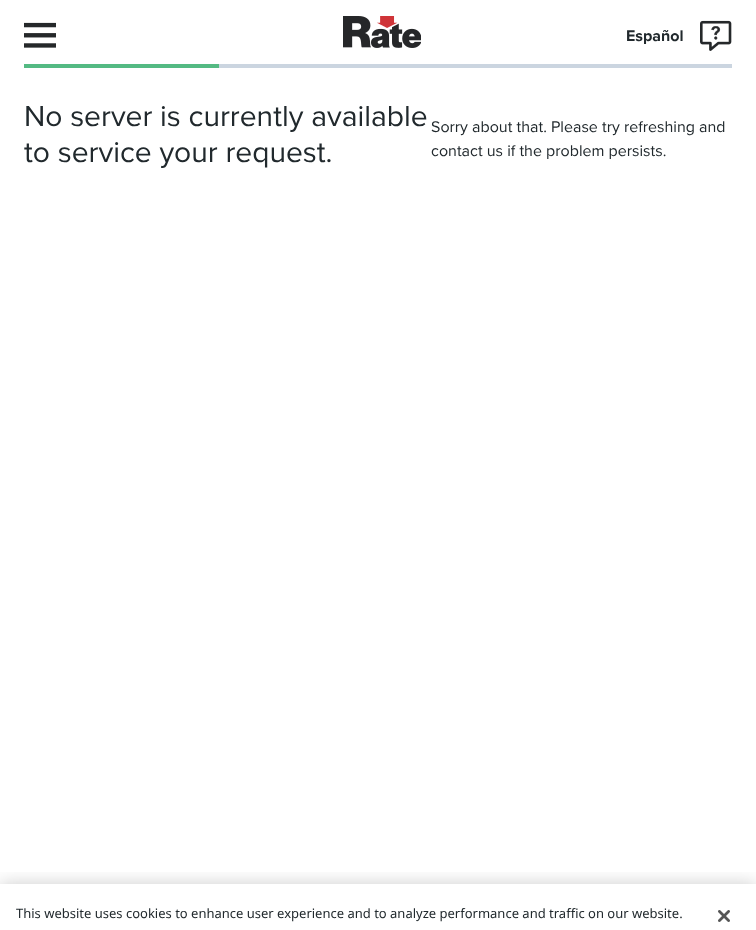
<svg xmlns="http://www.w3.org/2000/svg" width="756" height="930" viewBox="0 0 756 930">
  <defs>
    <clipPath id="clip1"><rect x="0" y="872" width="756" height="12"/></clipPath>
  </defs>
  <rect width="100%" height="100%" fill="rgb(255,255,255)"/>
  <image x="24" y="22" width="32" height="26" href="pic1.png"/>
  <image x="343" y="16" width="78" height="32" href="pic2.png"/>
  <text x="626" y="41" font-family="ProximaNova" font-size="16" fill="rgb(33,41,45)">Español</text>
  <image x="700" y="20" width="32" height="31" href="pic3.png"/>
  <rect x="219" y="64" width="513" height="4" fill="rgb(203,213,224)"/>
  <rect x="24" y="64" width="195" height="4" fill="rgb(84,186,131)"/>
  <g font-family="'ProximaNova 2'" font-size="30" fill="rgb(33,41,45)">
    <text>
      <tspan x="24" y="126">No server is currently available</tspan>
      <tspan x="24" y="162">to service your request.</tspan>
    </text>
  </g>
  <g font-family="'ProximaNova 2'" font-size="16" fill="rgb(33,41,45)">
    <text>
      <tspan x="431" y="132">Sorry about that. Please try refreshing and</tspan>
      <tspan x="431" y="156">contact us if the problem persists.</tspan>
    </text>
  </g>
  <g clip-path="url(#clip1)">
    <rect x="0" y="884" width="756" height="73" fill="rgba(0,0,0,0.2)" filter="blur(9px)"/>
  </g>
  <text x="16" y="918" font-family="Noto Sans" font-size="13" fill="rgb(33,41,45)">This website uses cookies to enhance user experience and to analyze performance and traffic on our website.</text>
  <image x="718" y="910" width="12" height="12" href="pic4.png"/>
</svg>
